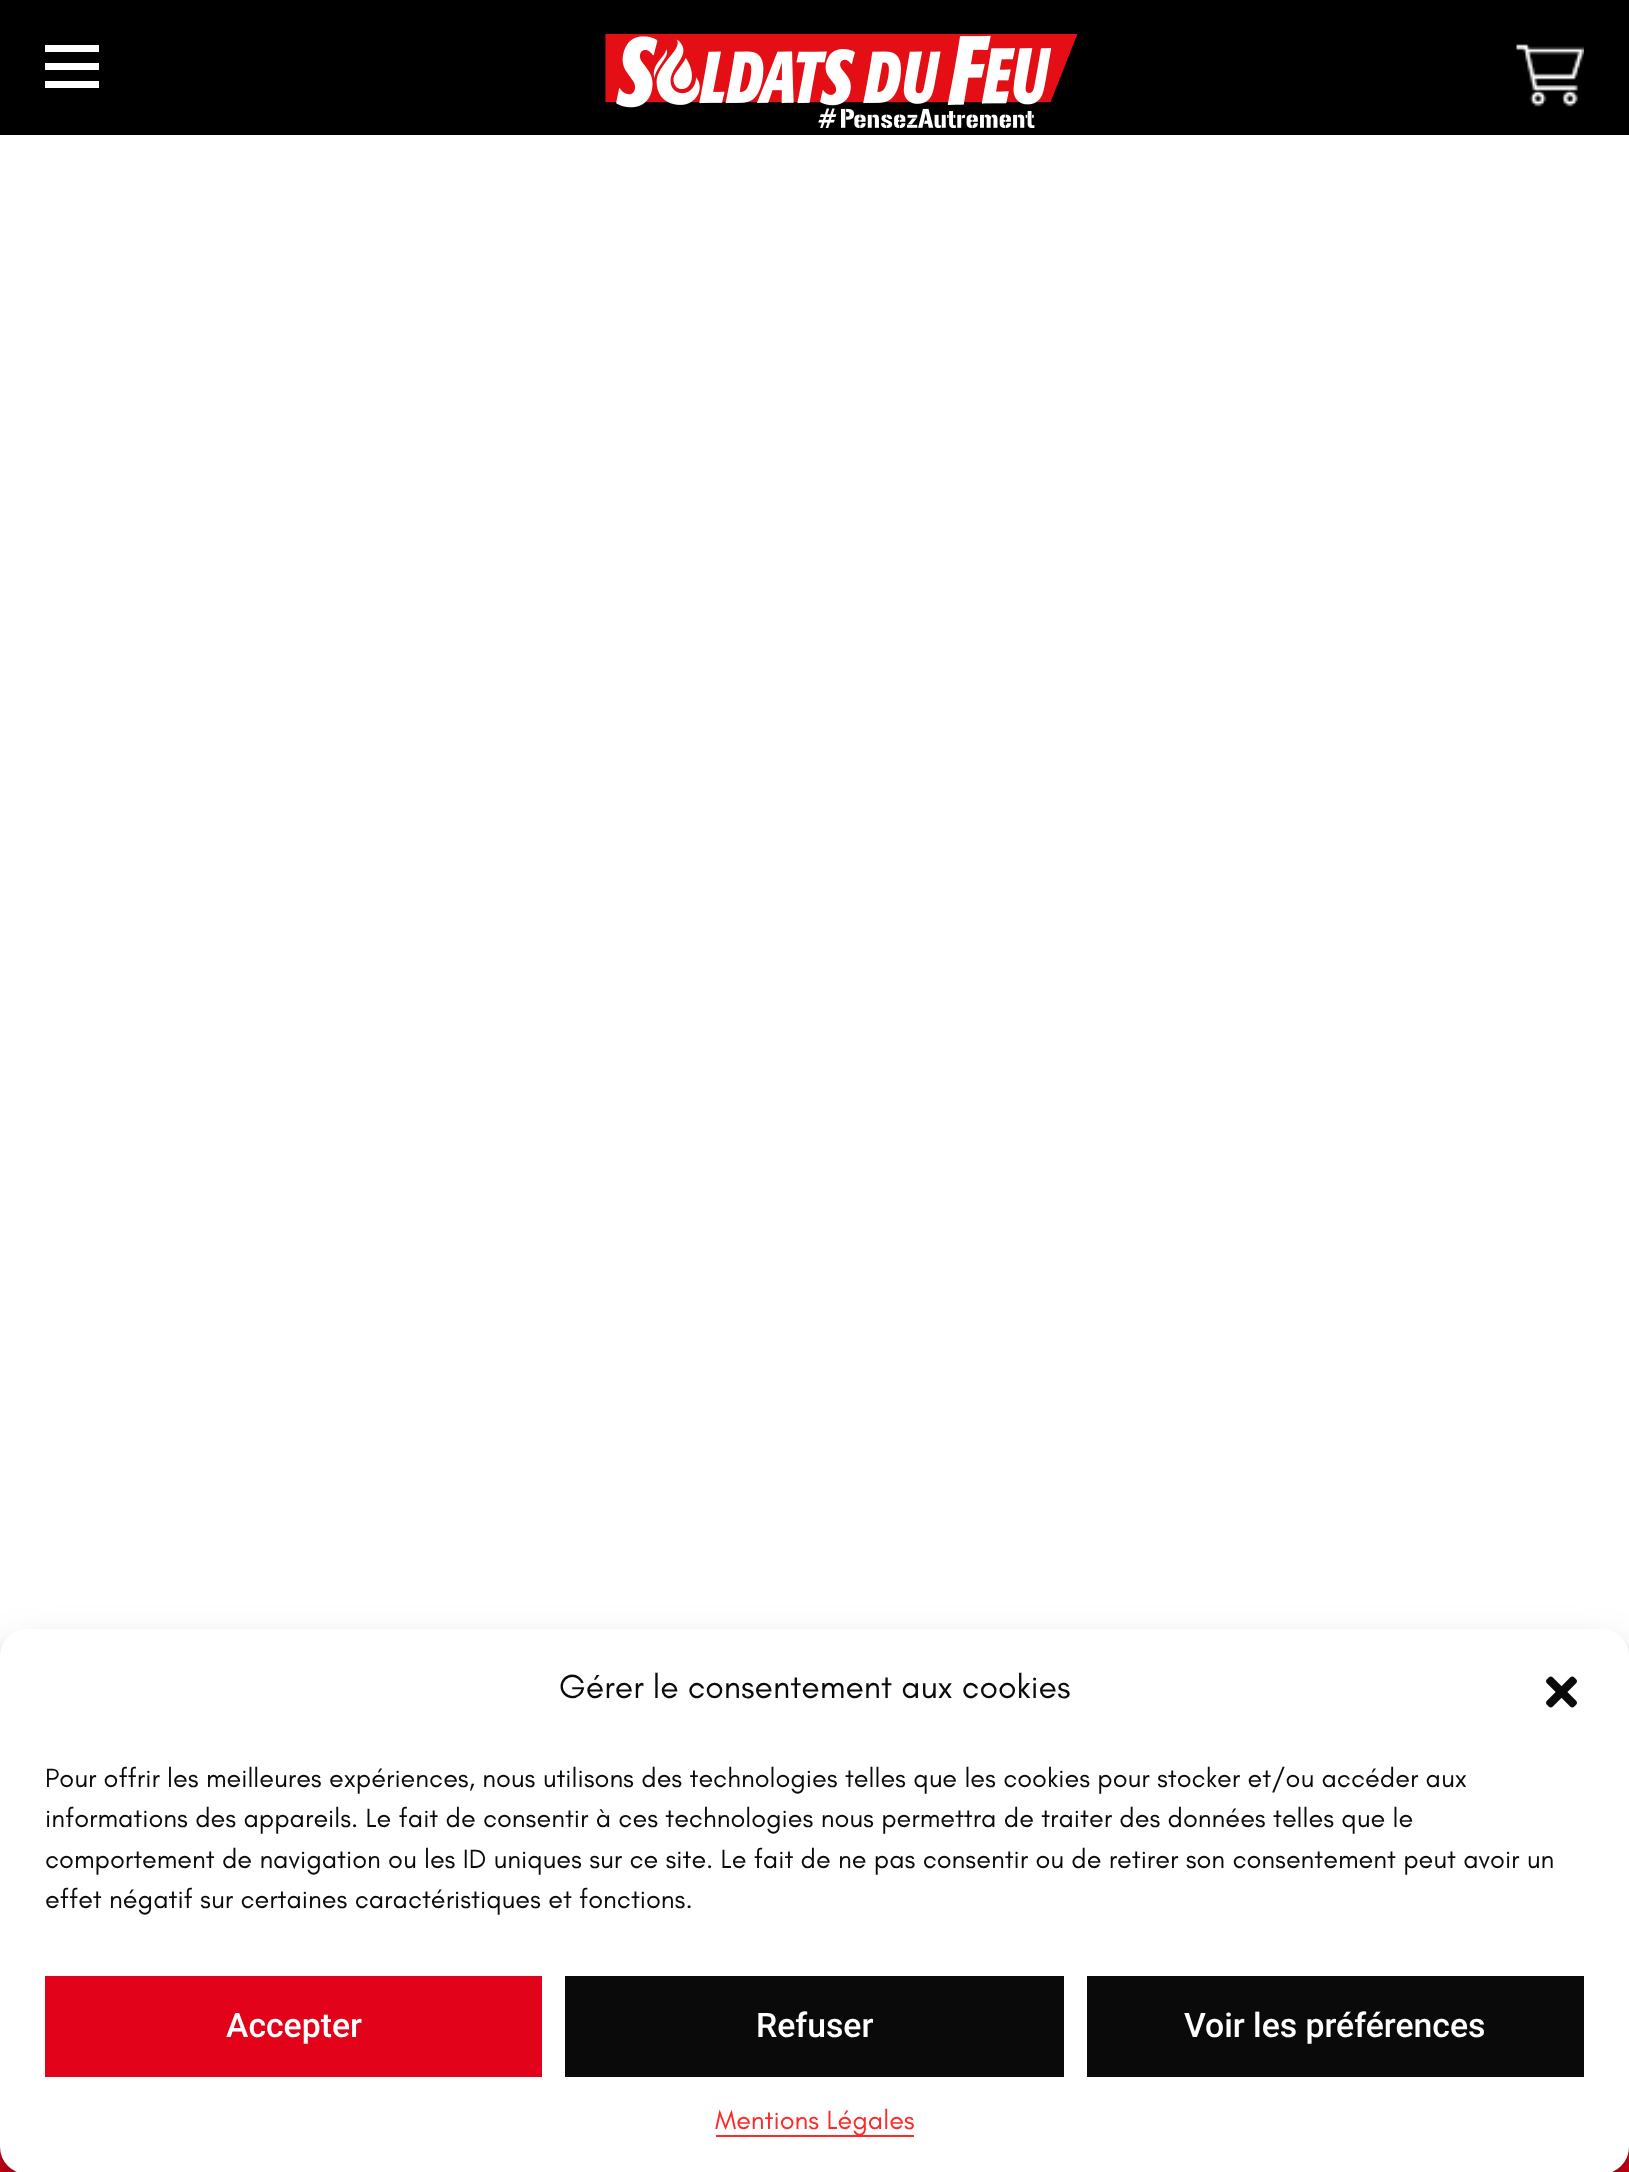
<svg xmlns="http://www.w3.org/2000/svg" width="1629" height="2172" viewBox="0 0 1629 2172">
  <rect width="100%" height="100%" fill="rgb(255,255,255)"/>
  <rect x="0" y="0" width="1629" height="135" fill="rgb(0,0,0)"/>
  <rect x="45" y="45" width="54" height="7" fill="rgb(255,255,255)"/>
  <rect x="45" y="63" width="54" height="7" fill="rgb(255,255,255)"/>
  <rect x="45" y="81" width="54" height="7" fill="rgb(255,255,255)"/>
  <image x="605" y="34" width="473" height="94" href="pic1.png"/>
  <image x="1516" y="44" width="68" height="63" href="pic2.png"/>
  <path d="M0 2140L1629 1998V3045L0 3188Z" fill="rgb(226,3,27)"/>
  <rect x="0" y="1643" width="1629" height="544" rx="27" fill="rgba(0,0,0,0.23)" filter="blur(7px)"/>
  <rect x="0" y="1652" width="1629" height="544" rx="27" fill="rgba(0,0,0,0.19)" filter="blur(22.5px)"/>
  <rect x="0" y="1629" width="1629" height="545" rx="27" fill="rgb(255,255,255)"/>
  <text x="559" y="1698" font-family="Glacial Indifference" font-size="33.75" fill="rgb(10,10,10)">Gérer le consentement aux cookies</text>
  <image x="1546" y="1676" width="31" height="32" href="pic3.png"/>
  <g font-family="Glacial Indifference" font-size="27" fill="rgb(10,10,10)">
    <text>
      <tspan x="45" y="1787">Pour offrir les meilleures expériences, nous utilisons des technologies telles que les cookies pour stocker et/ou accéder aux</tspan>
      <tspan x="45" y="1827">informations des appareils. Le fait de consentir à ces technologies nous permettra de traiter des données telles que le</tspan>
      <tspan x="45" y="1868">comportement de navigation ou les ID uniques sur ce site. Le fait de ne pas consentir ou de retirer son consentement peut avoir un</tspan>
      <tspan x="45" y="1908">effet négatif sur certaines caractéristiques et fonctions.</tspan>
    </text>
  </g>
  <rect x="45" y="1976" width="497" height="101" fill="rgb(226,3,27)"/>
  <text x="226" y="2037" font-family="Roboto" font-size="33.75" font-weight="500" fill="rgb(255,255,255)">Accepter</text>
  <rect x="565" y="1976" width="499" height="101" fill="rgb(10,10,10)"/>
  <text x="756" y="2037" font-family="Roboto" font-size="33.75" font-weight="500" fill="rgb(255,255,255)">Refuser</text>
  <rect x="1087" y="1976" width="497" height="101" fill="rgb(10,10,10)"/>
  <text x="1184" y="2037" font-family="Roboto" font-size="33.75" font-weight="500" fill="rgb(255,255,255)">Voir les préférences</text>
  <rect x="716" y="2135" width="198" height="2" fill="rgb(255,40,40)"/>
  <text x="715" y="2129" font-family="Glacial Indifference" font-size="27" fill="rgb(255,40,40)">Mentions Légales</text>
</svg>
